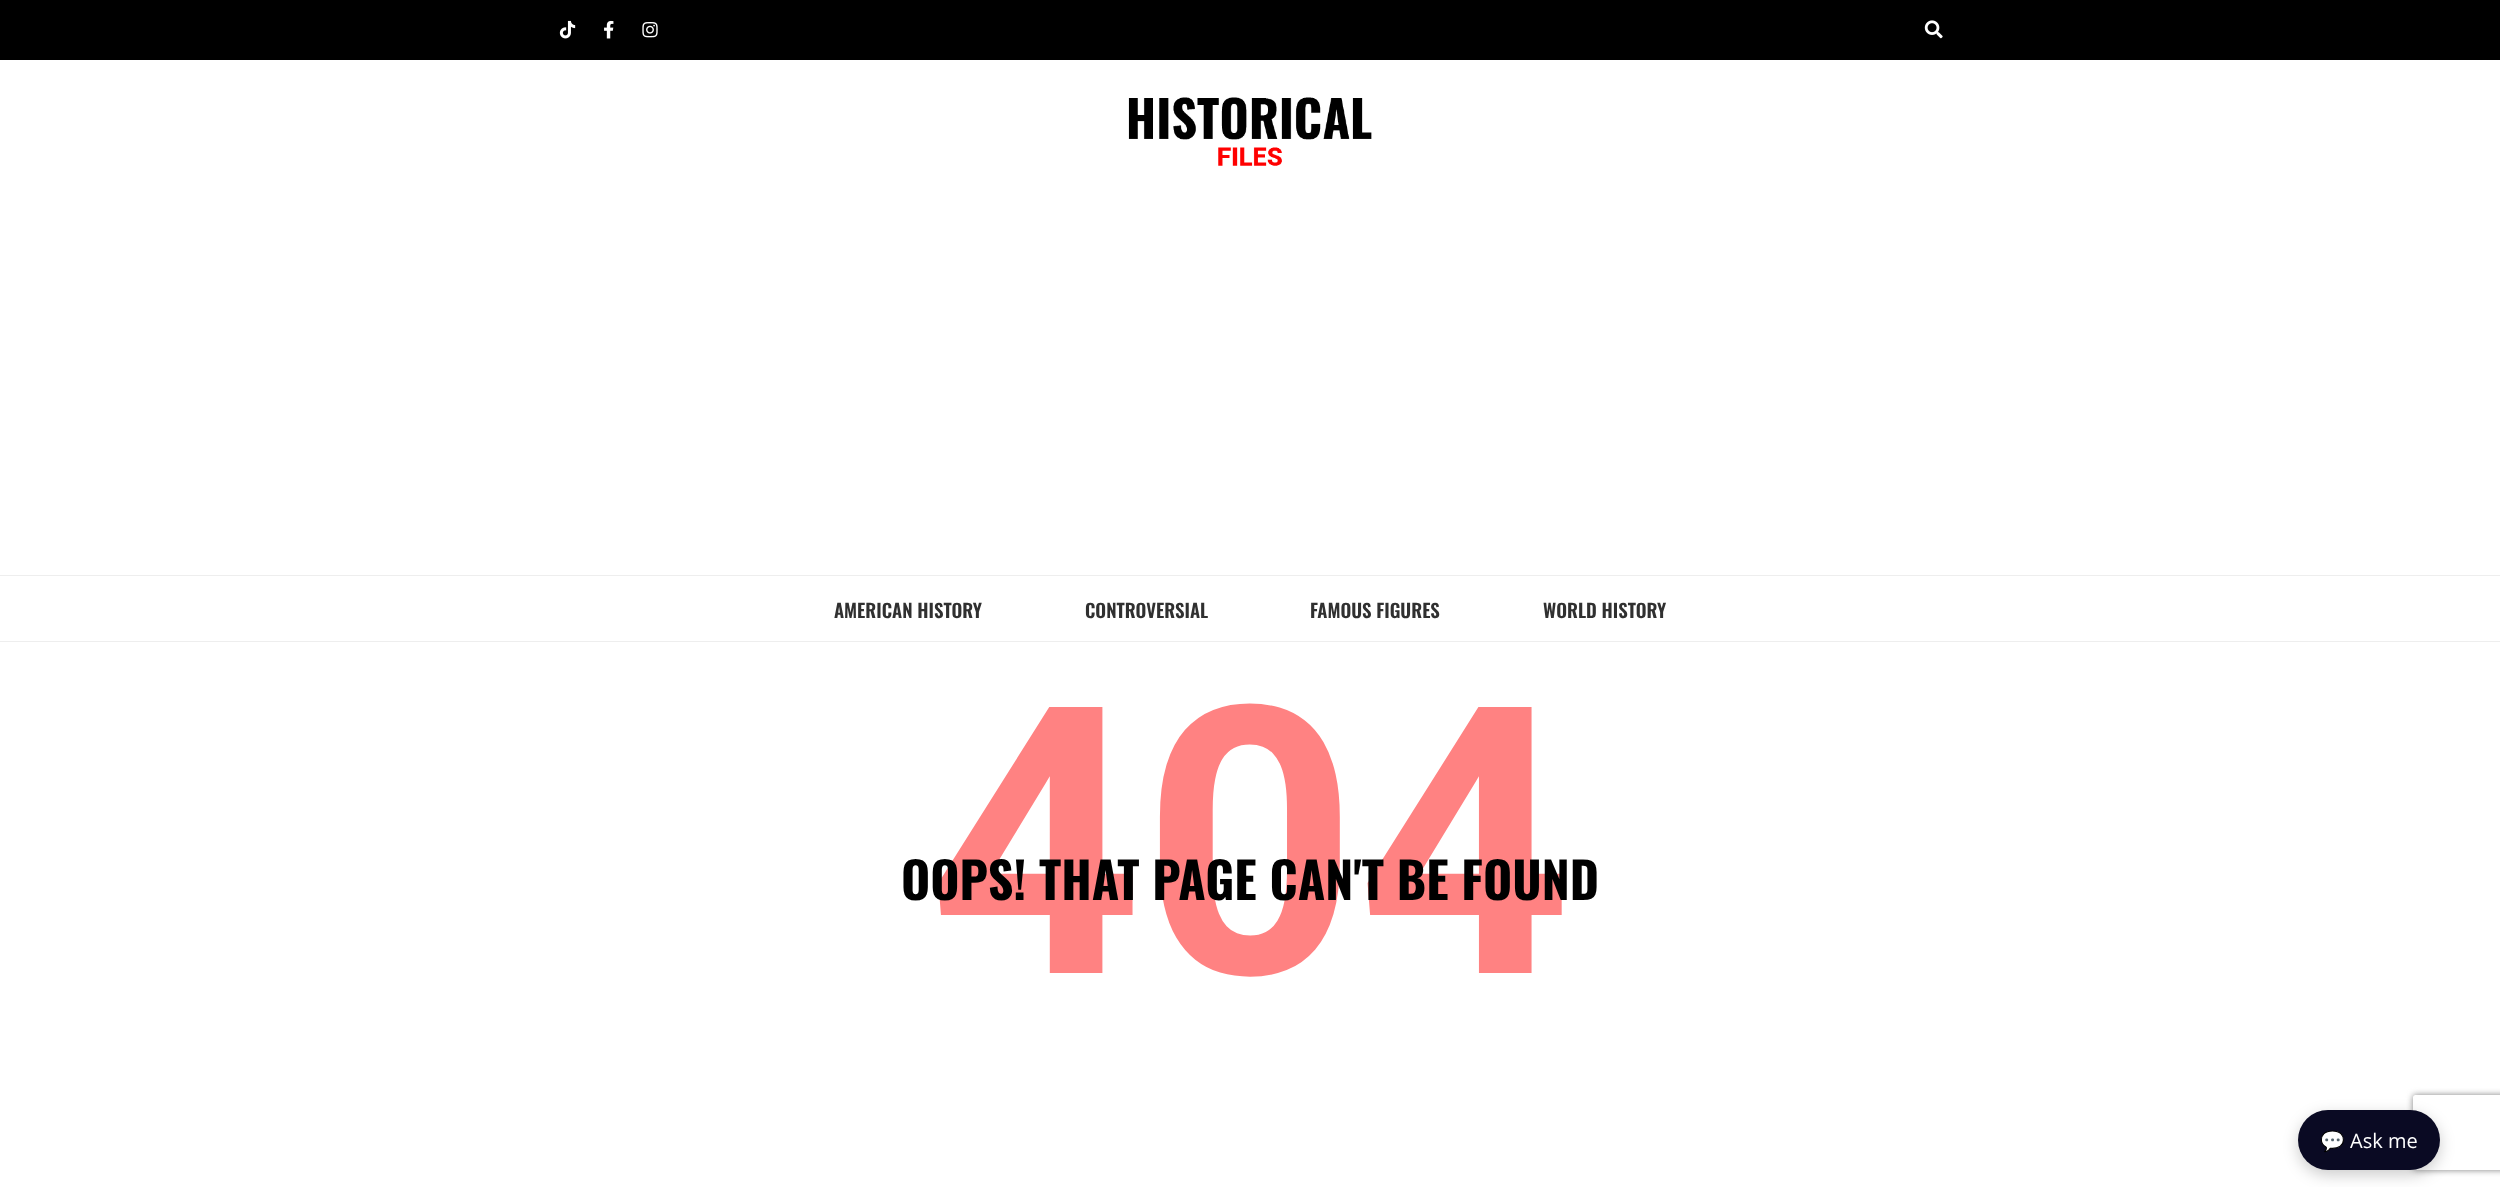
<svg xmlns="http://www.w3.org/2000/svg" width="2500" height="1187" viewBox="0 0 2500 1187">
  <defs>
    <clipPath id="clip1"><path d="M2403 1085H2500V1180H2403ZM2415.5 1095H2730.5C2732 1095 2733 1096 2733 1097.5V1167.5C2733 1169 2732 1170 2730.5 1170H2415.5C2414 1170 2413 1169 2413 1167.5V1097.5C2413 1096 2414 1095 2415.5 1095Z" clip-rule="evenodd"/></clipPath>
  </defs>
  <rect width="100%" height="100%" fill="rgb(255,255,255)"/>
  <rect x="0" y="0" width="2500" height="60" fill="rgb(0,0,0)"/>
  <image x="559" y="20" width="17" height="19" href="pic1.png"/>
  <image x="604" y="20" width="10" height="19" href="pic2.png"/>
  <image x="642" y="22" width="16" height="16" href="pic3.png"/>
  <image x="1924" y="20" width="19" height="19" href="pic4.png"/>
  <image x="1128" y="97" width="244" height="69" href="pic5.png"/>
  <rect x="0" y="575" width="2500" height="1" fill="rgb(238,238,238)"/>
  <rect x="0" y="641" width="2500" height="1" fill="rgb(238,238,238)"/>
  <g font-family="Oswald" font-size="18.75" font-weight="600" fill="rgb(48,48,48)">
    <text x="834" y="618">AMERICAN HISTORY</text>
    <text x="1085" y="618">CONTROVERSIAL</text>
    <text x="1310" y="618">FAMOUS FIGURES</text>
    <text x="1543" y="618">WORLD HISTORY</text>
  </g>
  <text x="928" y="973" font-family="Roboto" font-size="374" font-weight="bold" fill="rgb(255,130,130)">404</text>
  <text x="901" y="900" font-family="Oswald" font-size="50" font-weight="bold" fill="rgb(0,0,0)">OOPS! THAT PAGE CAN'T BE FOUND</text>
  <rect x="2298" y="1115" width="142" height="60" rx="30" fill="rgba(0,0,0,0.2)" filter="blur(7.5px)"/>
  <g clip-path="url(#clip1)">
    <rect x="2413" y="1095" width="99" height="75" rx="2.5" fill="rgb(128,128,128)" filter="blur(3px)"/>
  </g>
  <rect x="2298" y="1110" width="142" height="60" rx="30" fill="rgb(10,10,35)"/>
  <text x="2320" y="1148" font-family="Noto Color Emoji" font-size="20" fill="rgb(255,255,255)">💬</text>
  <text x="2350" y="1148" font-family="Open Sans" font-size="20" fill="rgb(255,255,255)">Ask me</text>
</svg>
